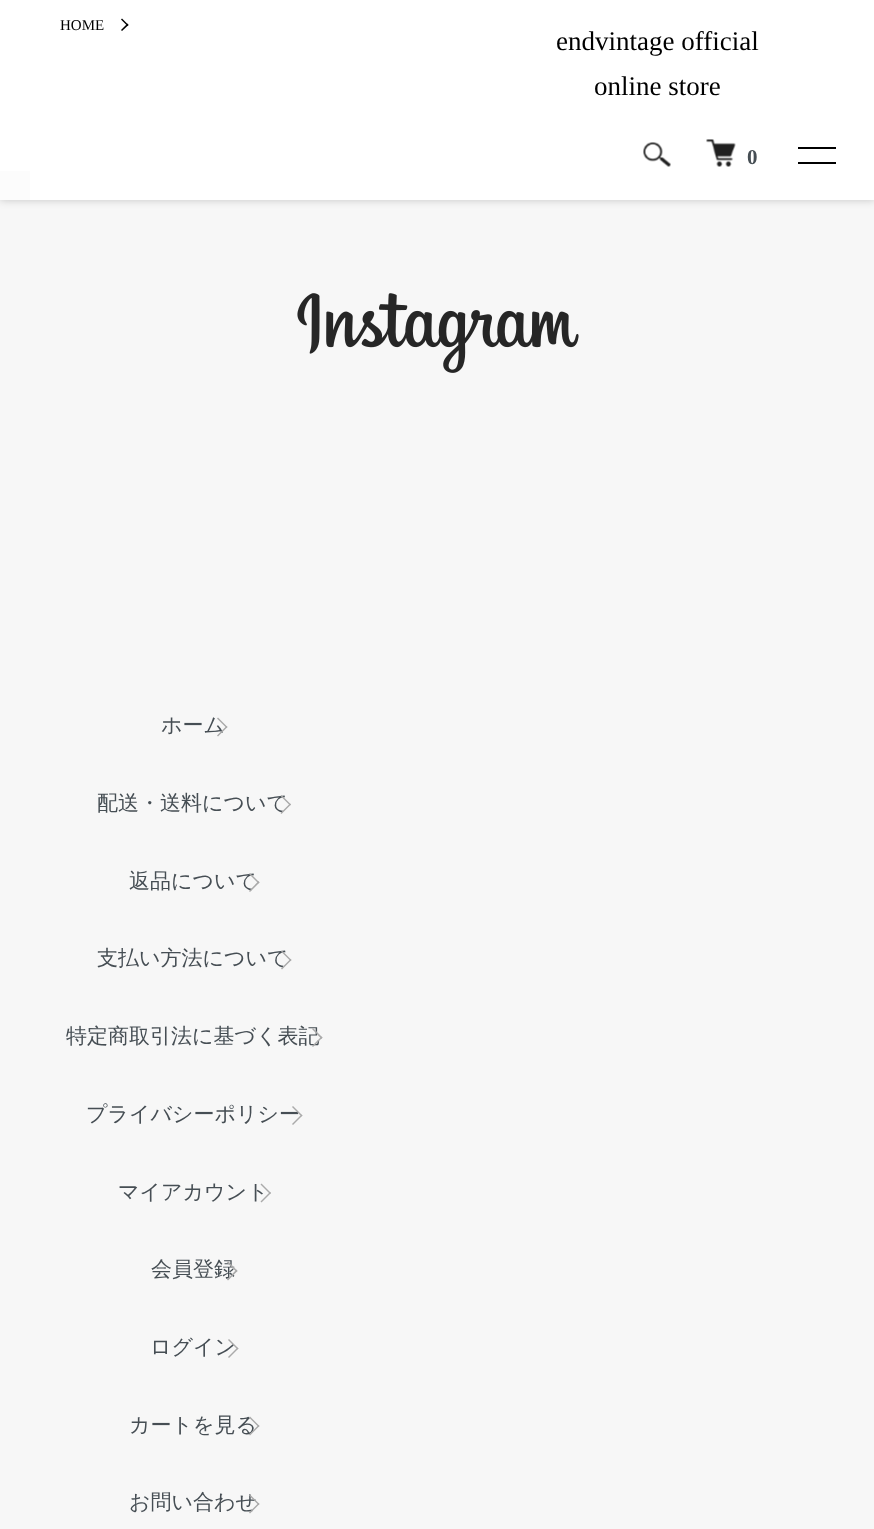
<svg xmlns="http://www.w3.org/2000/svg" width="874" height="1529" viewBox="0 0 874 1529">
  <defs>
    <clipPath id="clip1"><path d="M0 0H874V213H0ZM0 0H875V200H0Z" clip-rule="evenodd"/></clipPath>
  </defs>
  <rect width="100%" height="100%" fill="rgb(255,255,255)"/>
  <rect x="0" y="171" width="874" height="1358" fill="rgb(247,247,247)"/>
  <g clip-path="url(#clip1)">
    <rect x="0" y="0" width="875" height="200" fill="rgba(0,0,0,0.2)" filter="blur(4px)"/>
  </g>
  <text x="60" y="30" font-family="Liberation Serif" font-size="15" fill="rgb(0,0,0)">HOME</text>
  <path d="M121 19.5L122 18.5L128.5 25L127.5 26Z" fill="rgb(0,0,0)"/>
  <path d="M121 30L127.5 23.5L128.5 25L122 31Z" fill="rgb(0,0,0)"/>
  <rect x="0" y="171" width="30" height="29" fill="rgba(255,255,255,0.64)"/>
  <rect x="30" y="171" width="844" height="29" fill="rgb(255,255,255)"/>
  <g font-family="Liberation Serif" font-size="27" fill="rgb(0,0,0)">
    <text x="556" y="50">endvintage official</text>
    <text x="594" y="95">online store</text>
  </g>
  <image x="643" y="142" width="28" height="25" href="pic1.png"/>
  <image x="706" y="139" width="30" height="28" href="pic2.png"/>
  <text x="747" y="164" font-family="Liberation Serif" font-size="21" font-weight="bold" fill="rgb(70,78,84)">0</text>
  <rect x="798" y="147" width="38" height="2" fill="rgb(0,0,0)"/>
  <rect x="798" y="162" width="38" height="2" fill="rgb(0,0,0)"/>
  <image x="297" y="293" width="282" height="80" href="pic3.png"/>
  <text x="161" y="732" font-family="WenQuanYi Zen Hei" font-size="21" font-weight="500" fill="rgb(70,78,84)">ホーム</text>
  <path d="M217 718.5L218 717.5L227.5 727L226.5 728Z" fill="rgb(170,170,170)"/>
  <path d="M217 735.5L226.5 726L227.5 727L218 736.5Z" fill="rgb(170,170,170)"/>
  <text x="97" y="810" font-family="WenQuanYi Zen Hei" font-size="21" font-weight="500" fill="rgb(70,78,84)">配送・送料について</text>
  <path d="M280.5 796L281.5 795L291 804.5L290 805.5Z" fill="rgb(170,170,170)"/>
  <path d="M280.5 813L290 803.5L291 804.5L281.5 814Z" fill="rgb(170,170,170)"/>
  <text x="129" y="888" font-family="WenQuanYi Zen Hei" font-size="21" font-weight="500" fill="rgb(70,78,84)">返品について</text>
  <path d="M249 874L250 873L259.5 882.5L258.5 883.5Z" fill="rgb(170,170,170)"/>
  <path d="M249 891L258.5 881L259.5 882.5L250 892Z" fill="rgb(170,170,170)"/>
  <text x="97" y="965" font-family="WenQuanYi Zen Hei" font-size="21" font-weight="500" fill="rgb(70,78,84)">支払い方法について</text>
  <path d="M281 951.5L282 950.5L291.5 960L290.5 961Z" fill="rgb(170,170,170)"/>
  <path d="M281 968.5L290.5 959L291.5 960L282 969.5Z" fill="rgb(170,170,170)"/>
  <text x="66" y="1043" font-family="WenQuanYi Zen Hei" font-size="21" font-weight="500" fill="rgb(70,78,84)">特定商取引法に基づく表記</text>
  <path d="M312 1029L313 1028L322.5 1037.5L321.5 1039Z" fill="rgb(170,170,170)"/>
  <path d="M312 1046L321.5 1036.5L322.5 1037.5L313 1047Z" fill="rgb(170,170,170)"/>
  <text x="86" y="1121" font-family="WenQuanYi Zen Hei" font-size="21" font-weight="500" fill="rgb(70,78,84)">プライバシーポリシー</text>
  <path d="M292 1107L293 1106L302.5 1115.5L301.5 1116.5Z" fill="rgb(170,170,170)"/>
  <path d="M292 1124L301.5 1114.5L302.5 1115.5L293 1125Z" fill="rgb(170,170,170)"/>
  <text x="118" y="1199" font-family="WenQuanYi Zen Hei" font-size="21" font-weight="500" fill="rgb(70,78,84)">マイアカウント</text>
  <path d="M260.5 1184.5L261.5 1183.5L271 1193L270 1194Z" fill="rgb(170,170,170)"/>
  <path d="M260.5 1201.5L270 1192L271 1193L261.5 1202.5Z" fill="rgb(170,170,170)"/>
  <text x="151" y="1276" font-family="WenQuanYi Zen Hei" font-size="21" font-weight="500" fill="rgb(70,78,84)">会員登録</text>
  <path d="M227 1262.5L228 1261L237.5 1271L236.5 1272Z" fill="rgb(170,170,170)"/>
  <path d="M227 1279.5L236.5 1269.5L237.5 1271L228 1280.5Z" fill="rgb(170,170,170)"/>
  <text x="150" y="1354" font-family="WenQuanYi Zen Hei" font-size="21" font-weight="500" fill="rgb(70,78,84)">ログイン</text>
  <path d="M228 1340L229 1339L238.5 1348.5L237.5 1349.5Z" fill="rgb(170,170,170)"/>
  <path d="M228 1357L237.5 1347.5L238.5 1348.5L229 1358Z" fill="rgb(170,170,170)"/>
  <text x="129" y="1432" font-family="WenQuanYi Zen Hei" font-size="21" font-weight="500" fill="rgb(70,78,84)">カートを見る</text>
  <path d="M249 1417.5L250 1416.5L259.5 1426L258.5 1427Z" fill="rgb(170,170,170)"/>
  <path d="M249 1434.5L258.5 1425L259.5 1426L250 1435.5Z" fill="rgb(170,170,170)"/>
  <text x="129" y="1509" font-family="WenQuanYi Zen Hei" font-size="21" font-weight="500" fill="rgb(70,78,84)">お問い合わせ</text>
  <path d="M249 1495.5L250 1494.5L259.5 1504L258.5 1505Z" fill="rgb(170,170,170)"/>
  <path d="M249 1512.5L258.5 1503L259.5 1504L250 1513.5Z" fill="rgb(170,170,170)"/>
</svg>
